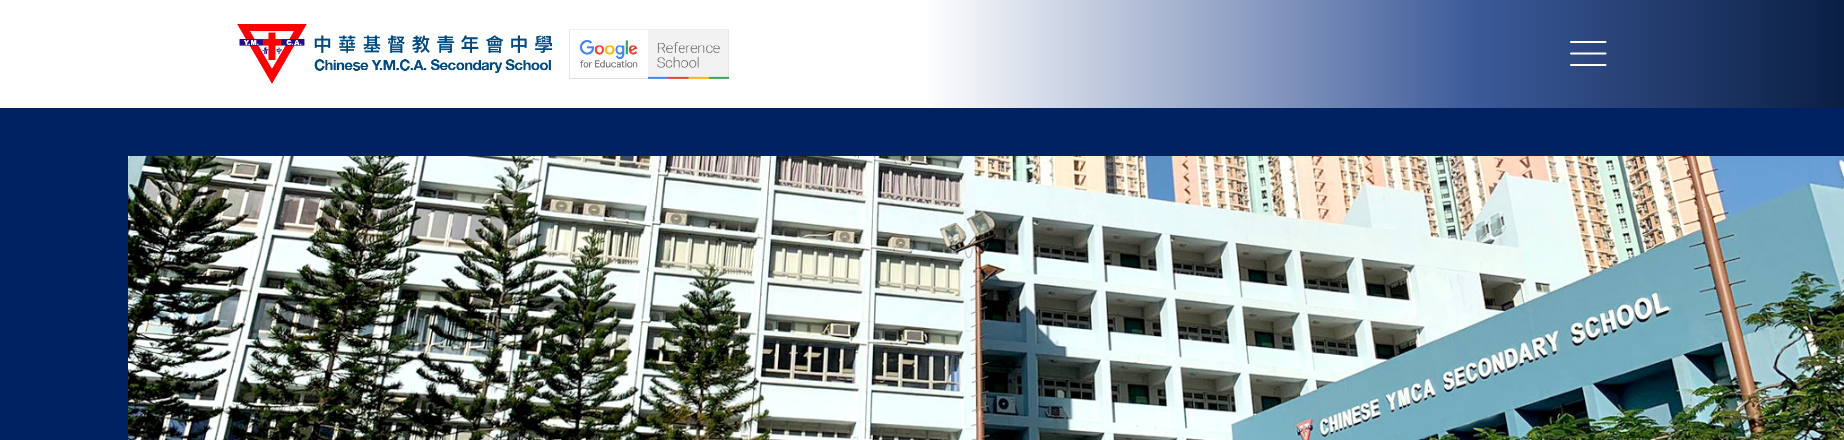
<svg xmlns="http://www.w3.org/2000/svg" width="1844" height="440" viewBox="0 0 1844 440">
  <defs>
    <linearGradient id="g1" gradientUnits="userSpaceOnUse" x1="0" y1="54" x2="1844" y2="54"><stop offset="0.5" stop-color="rgb(255,255,255)"/><stop offset="0.8" stop-color="rgb(60,90,153)"/><stop offset="1" stop-color="rgb(10,31,68)"/></linearGradient>
  </defs>
  <rect width="100%" height="100%" fill="rgb(255,255,255)"/>
  <rect x="929" y="0" width="915" height="108" fill="url(#g1)"/>
  <image x="237" y="24" width="492" height="60" href="pic1.png"/>
  <path d="M1571 42H1605.5M1571 53.5H1605.5M1571 65H1605.5" fill="none" stroke="rgb(255,255,255)" stroke-width="2" stroke-linecap="round" stroke-linejoin="round"/>
  <rect x="0" y="108" width="1844" height="332" fill="rgb(0,33,98)"/>
  <image x="128" y="156" width="1716" height="284" href="pic2.png"/>
</svg>
